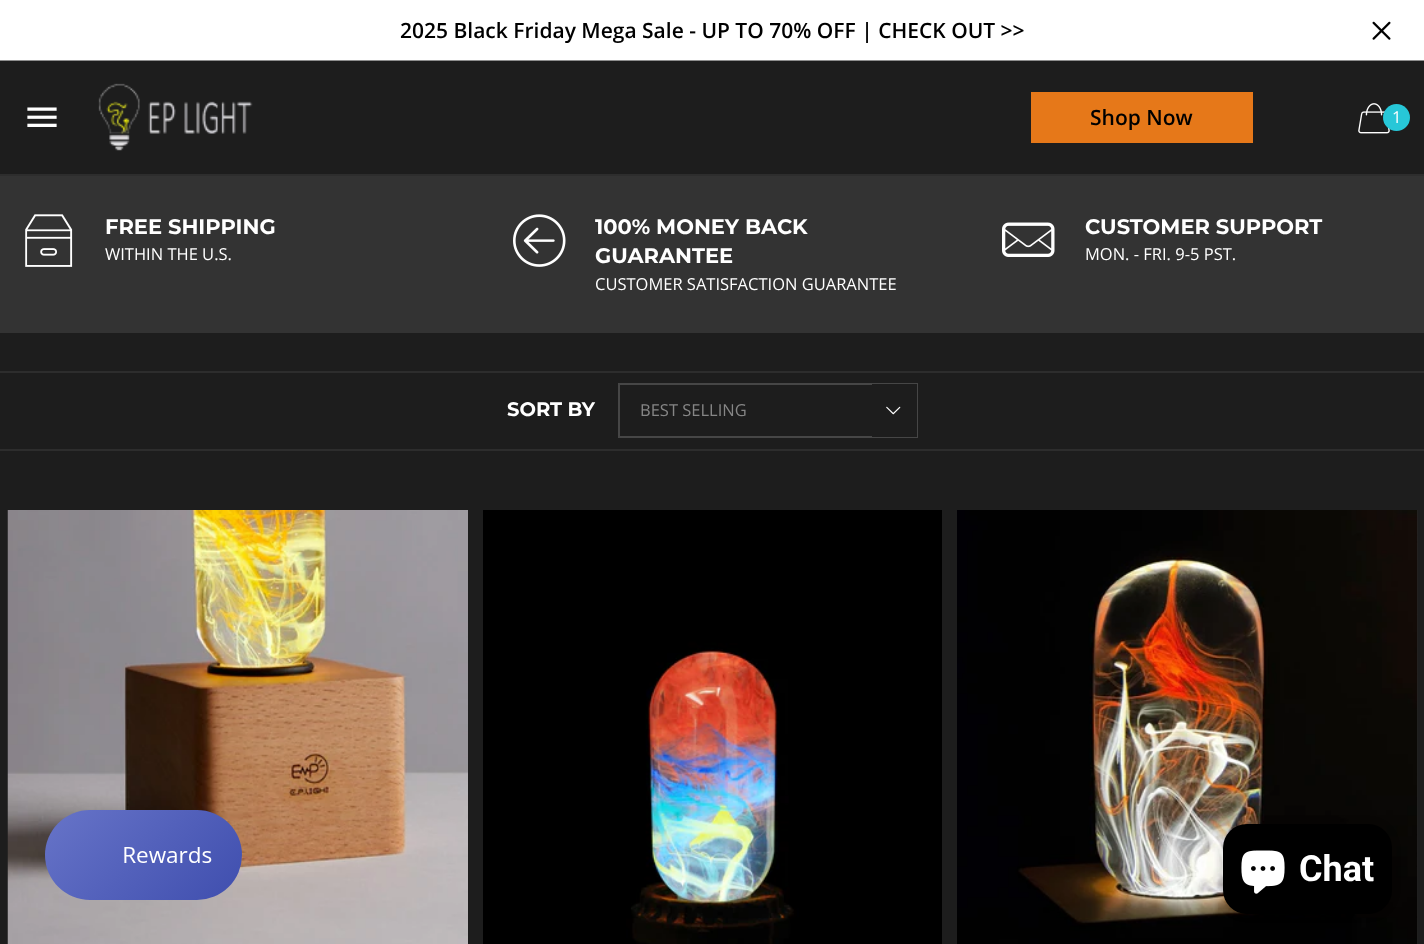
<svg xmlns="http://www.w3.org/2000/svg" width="1424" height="944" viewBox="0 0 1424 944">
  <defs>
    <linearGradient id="g1" gradientUnits="userSpaceOnUse" x1="72" y1="783" x2="215" y2="927"><stop offset="0" stop-color="rgb(103,116,200)"/><stop offset="1" stop-color="rgb(63,78,174)"/></linearGradient>
  </defs>
  <rect width="100%" height="100%" fill="rgb(29,29,29)"/>
  <rect x="0" y="0" width="1424" height="60" fill="rgb(255,255,255)"/>
  <text x="400" y="38" font-family="Open Sans" font-size="21" font-weight="600" fill="rgb(0,0,0)">2025 Black Friday Mega Sale - UP TO 70% OFF | CHECK OUT &gt;&gt;</text>
  <image x="1372" y="21" width="19" height="19" href="pic1.png"/>
  <rect x="0" y="60" width="1424" height="1" fill="rgb(142,142,142)"/>
  <rect x="0" y="174" width="1424" height="2" fill="rgb(45,45,45)"/>
  <image x="27" y="107" width="30" height="20" href="pic2.png"/>
  <image x="98" y="83" width="155" height="68" href="pic3.png"/>
  <rect x="1031" y="92" width="222" height="51" fill="rgb(230,120,25)"/>
  <text x="1090" y="125" font-family="Open Sans" font-size="21" font-weight="600" fill="rgb(0,0,0)">Shop Now</text>
  <image x="1358" y="103" width="32" height="31" href="pic4.png"/>
  <circle cx="1396.5" cy="117.5" r="13.5" fill="rgb(39,199,216)"/>
  <text x="1392" y="123" font-family="Open Sans" font-size="16.5" fill="rgb(255,255,255)">1</text>
  <rect x="0" y="176" width="1424" height="157" fill="rgb(51,51,51)"/>
  <image x="25" y="214" width="48" height="53" href="pic5.png"/>
  <text x="105" y="234" font-family="Montserrat" font-size="21" font-weight="bold" fill="rgb(255,255,255)">FREE SHIPPING</text>
  <text x="105" y="260" font-family="Open Sans" font-size="16.5" fill="rgb(255,255,255)">WITHIN THE U.S.</text>
  <image x="513" y="214" width="53" height="53" href="pic6.png"/>
  <g font-family="Montserrat" font-size="21" font-weight="bold" fill="rgb(255,255,255)">
    <text>
      <tspan x="595" y="234">100% MONEY BACK</tspan>
      <tspan x="595" y="263">GUARANTEE</tspan>
    </text>
  </g>
  <text x="595" y="290" font-family="Open Sans" font-size="16.5" fill="rgb(255,255,255)">CUSTOMER SATISFACTION GUARANTEE</text>
  <image x="1002" y="222" width="53" height="35" href="pic7.png"/>
  <text x="1085" y="234" font-family="Montserrat" font-size="21" font-weight="bold" fill="rgb(255,255,255)">CUSTOMER SUPPORT</text>
  <text x="1085" y="260" font-family="Open Sans" font-size="16.5" fill="rgb(255,255,255)">MON. - FRI. 9-5 PST.</text>
  <rect x="0" y="371" width="1424" height="2" fill="rgb(45,45,45)"/>
  <rect x="0" y="449" width="1424" height="2" fill="rgb(45,45,45)"/>
  <text x="507" y="416" font-family="Montserrat" font-size="19.5" font-weight="bold" fill="rgb(255,255,255)">SORT BY</text>
  <rect x="619" y="384" width="298" height="53" fill="none" stroke="rgb(70,70,70)" stroke-width="2"/>
  <text x="640" y="416" font-family="Open Sans" font-size="16.5" fill="rgb(134,134,134)">BEST SELLING</text>
  <rect x="872" y="384" width="45" height="53" fill="rgb(29,29,29)"/>
  <image x="886" y="406" width="15" height="9" href="pic8.png"/>
  <image x="7" y="510" width="461" height="434" href="pic9.png"/>
  <image x="483" y="510" width="459" height="434" href="pic10.png"/>
  <rect x="1417" y="510" width="1" height="434" fill="rgb(41,41,41)"/>
  <image x="957" y="510" width="461" height="434" href="pic11.png"/>
  <rect x="45" y="810" width="197" height="90" rx="45" fill="url(#g1)"/>
  <image x="124" y="847" width="88" height="16" href="pic12.png"/>
  <rect x="1223" y="824" width="169" height="90" rx="24" fill="rgba(0,0,0,0.15)" filter="blur(4px)"/>
  <rect x="1223" y="824" width="169" height="90" rx="24" fill="rgb(0,0,0)"/>
  <image x="1241" y="850" width="44" height="44" href="pic13.png"/>
  <text x="1299" y="881" font-family="Roboto" font-size="36" font-weight="bold" fill="rgb(255,255,255)">Chat</text>
</svg>
